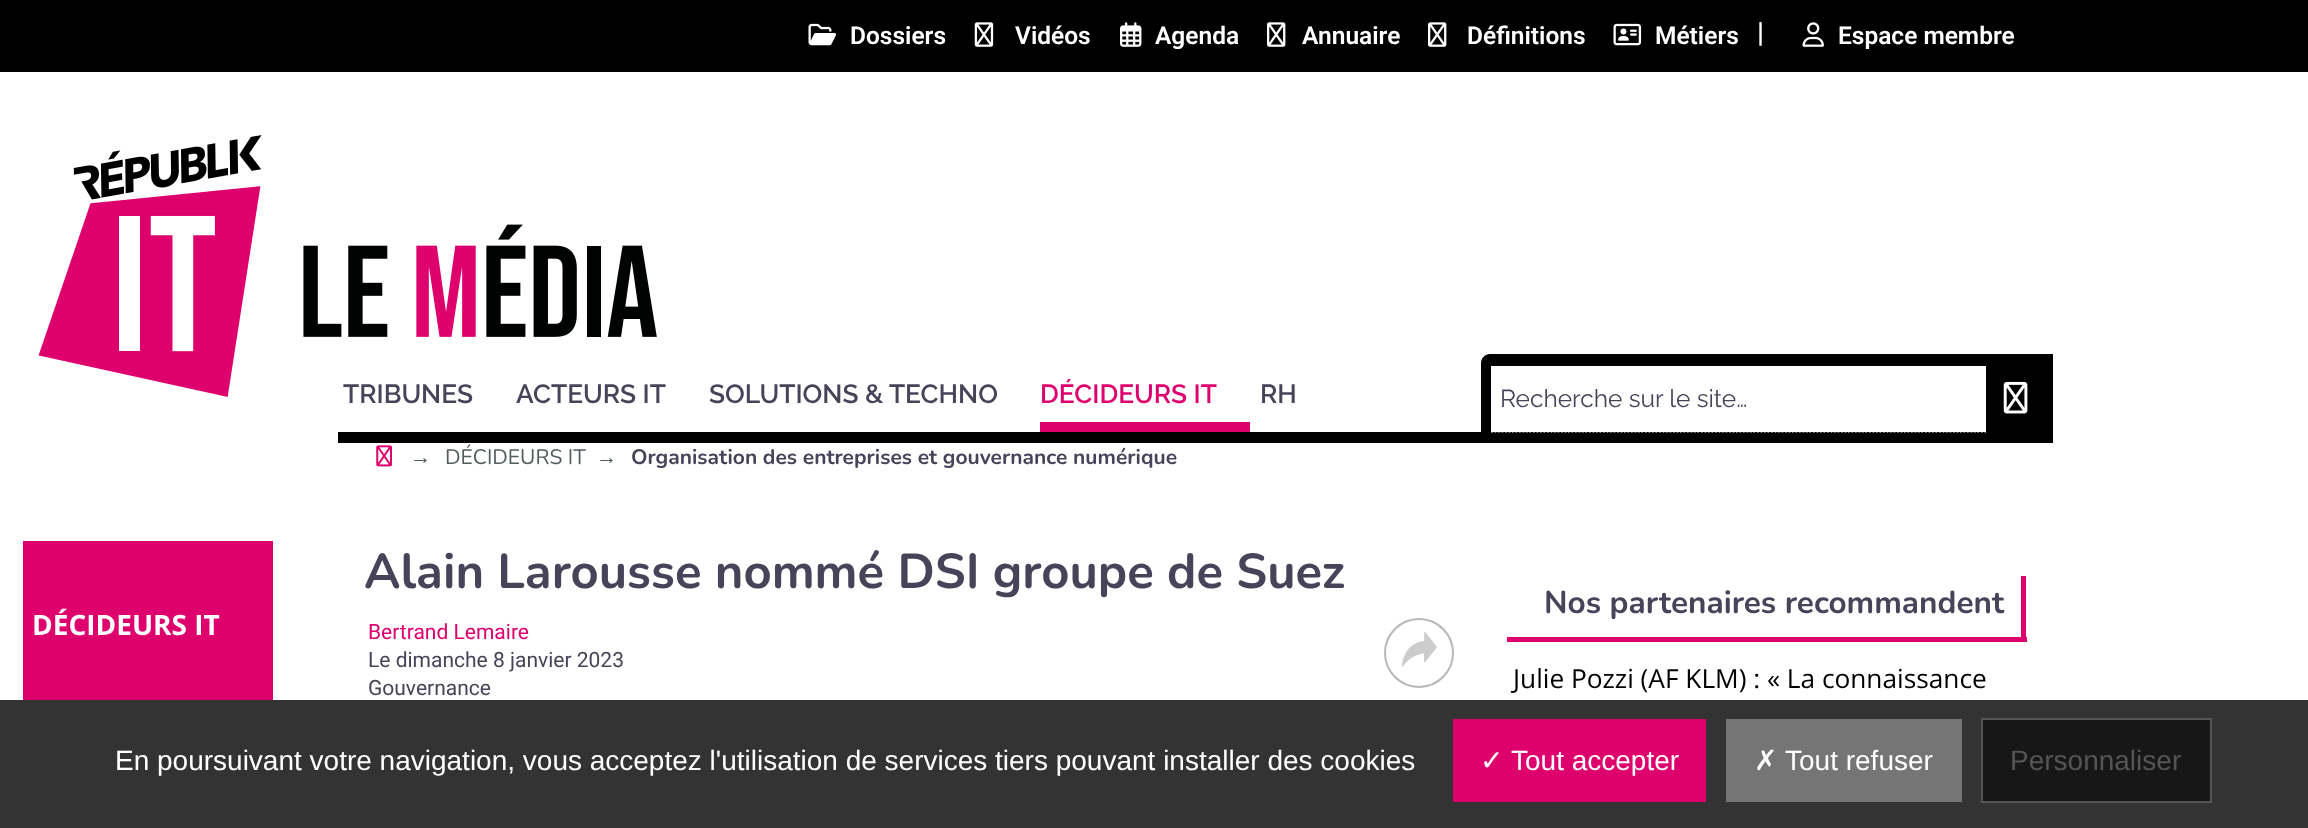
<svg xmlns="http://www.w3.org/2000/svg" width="2308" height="828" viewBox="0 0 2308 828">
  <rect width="100%" height="100%" fill="rgb(255,255,255)"/>
  <rect x="0" y="0" width="2308" height="72" fill="rgb(0,0,0)"/>
  <image x="808" y="23" width="28" height="23" href="pic1.png"/>
  <text x="850" y="44" font-family="Roboto" font-size="24.5" font-weight="600" fill="rgb(255,255,255)">Dossiers</text>
  <image x="974" y="22" width="20" height="25" href="pic2.png"/>
  <text x="1015" y="44" font-family="Roboto" font-size="24.5" font-weight="600" fill="rgb(255,255,255)">Vidéos</text>
  <image x="1120" y="22" width="22" height="25" href="pic3.png"/>
  <text x="1155" y="44" font-family="Roboto" font-size="24.5" font-weight="600" fill="rgb(255,255,255)">Agenda</text>
  <image x="1267" y="22" width="19" height="25" href="pic4.png"/>
  <text x="1302" y="44" font-family="Roboto" font-size="24.5" font-weight="600" fill="rgb(255,255,255)">Annuaire</text>
  <image x="1428" y="22" width="19" height="25" href="pic4.png"/>
  <text x="1467" y="44" font-family="Roboto" font-size="24.5" font-weight="600" fill="rgb(255,255,255)">Définitions</text>
  <image x="1613" y="23" width="29" height="23" href="pic5.png"/>
  <text x="1655" y="44" font-family="Roboto" font-size="24.5" font-weight="600" fill="rgb(255,255,255)">Métiers</text>
  <text x="1757" y="42" font-family="Roboto" font-size="28" font-weight="600" fill="rgb(255,255,255)">|</text>
  <image x="1802" y="22" width="22" height="25" href="pic6.png"/>
  <text x="1838" y="44" font-family="Roboto" font-size="24.5" font-weight="600" fill="rgb(255,255,255)">Espace membre</text>
  <image x="38" y="135" width="619" height="262" href="pic7.png"/>
  <rect x="338" y="432" width="1715" height="11" fill="rgb(0,0,0)"/>
  <g font-family="'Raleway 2'" font-size="26.25" font-weight="100" fill="rgb(71,68,90)">
    <text x="343" y="403">TRIBUNES</text>
    <text x="516" y="403">ACTEURS IT</text>
    <text x="709" y="403">SOLUTIONS &amp; TECHNO</text>
  </g>
  <rect x="1040" y="422" width="210" height="10" fill="rgb(221,0,109)"/>
  <text x="1040" y="403" font-family="'Raleway 2'" font-size="26.25" font-weight="100" fill="rgb(221,0,109)">DÉCIDEURS IT</text>
  <text x="1260" y="403" font-family="'Raleway 2'" font-size="26.25" font-weight="100" fill="rgb(71,68,90)">RH</text>
  <path d="M1490 354H2053V432H1481V363C1481 358 1485 354 1490 354Z" fill="rgb(0,0,0)"/>
  <rect x="1491" y="366" width="495" height="66" fill="rgb(255,255,255)"/>
  <path d="M1491 431.5H1986" fill="none" stroke="rgb(255,255,255)" stroke-width="1.8" stroke-dasharray="1.75 1.75"/>
  <text x="1500" y="407" font-family="Raleway" font-size="24.5" font-weight="100" fill="rgb(71,68,90)">Recherche sur le site…</text>
  <image x="2003" y="381" width="25" height="33" href="pic8.png"/>
  <image x="376" y="445" width="16" height="22" href="pic9.png"/>
  <text x="410" y="464" font-family="Liberation Sans" font-size="21" fill="rgb(81,92,93)">→</text>
  <text x="445" y="464" font-family="Nunito" font-size="21" font-weight="200" fill="rgb(81,92,93)">DÉCIDEURS IT</text>
  <text x="596" y="464" font-family="Liberation Sans" font-size="21" fill="rgb(81,92,93)">→</text>
  <text x="631" y="464" font-family="'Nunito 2'" font-size="21" font-weight="200" fill="rgb(71,68,90)">Organisation des entreprises et gouvernance numérique</text>
  <rect x="23" y="541" width="250" height="159" fill="rgb(221,0,109)"/>
  <text x="32" y="635" font-family="Open Sans" font-size="28" font-weight="bold" fill="rgb(255,255,255)">DÉCIDEURS IT</text>
  <text x="364" y="588" font-family="'Nunito 2'" font-size="49" font-weight="200" fill="rgb(71,68,90)">Alain Larousse nommé DSI groupe de Suez</text>
  <text x="368" y="639" font-family="Roboto" font-size="21" fill="rgb(221,0,109)">Bertrand Lemaire</text>
  <g font-family="Roboto" font-size="21" fill="rgb(71,68,90)">
    <text>
      <tspan x="368" y="667">Le dimanche 8 janvier 2023</tspan>
      <tspan x="368" y="695">Gouvernance</tspan>
    </text>
  </g>
  <circle cx="1419" cy="653" r="34" fill="none" stroke="rgb(183,183,183)" stroke-width="2"/>
  <image x="1402" y="632" width="35" height="35" href="pic10.png"/>
  <rect x="2021" y="576" width="5" height="66" fill="rgb(221,0,109)"/>
  <rect x="1507" y="637" width="520" height="5" fill="rgb(221,0,109)"/>
  <text x="1544" y="613" font-family="'Nunito 2'" font-size="31.5" font-weight="200" fill="rgb(71,68,90)">Nos partenaires recommandent</text>
  <text x="1513" y="688" font-family="Open Sans" font-size="26.25" fill="rgb(0,0,0)">Julie Pozzi (AF KLM) : « La connaissance</text>
  <rect x="0" y="700" width="2308" height="128" fill="rgb(51,51,51)"/>
  <text x="115" y="770" font-family="Liberation Sans" font-size="28" fill="rgb(255,255,255)">En poursuivant votre navigation, vous acceptez l'utilisation de services tiers pouvant installer des cookies</text>
  <rect x="1453" y="719" width="253" height="83" fill="rgb(221,0,109)"/>
  <text x="1480" y="770" font-family="DejaVu Sans" font-size="28" fill="rgb(255,255,255)">✓</text>
  <text x="1511" y="770" font-family="Liberation Sans" font-size="28" fill="rgb(255,255,255)">Tout accepter</text>
  <rect x="1726" y="719" width="236" height="83" fill="rgb(117,117,117)"/>
  <text x="1754" y="770" font-family="DejaVu Sans" font-size="28" fill="rgb(255,255,255)">✗</text>
  <text x="1785" y="770" font-family="Liberation Sans" font-size="28" fill="rgb(255,255,255)">Tout refuser</text>
  <rect x="1982" y="719" width="229" height="83" fill="rgb(23,23,23)" stroke="rgb(85,85,85)" stroke-width="2"/>
  <text x="2010" y="770" font-family="Liberation Sans" font-size="28" fill="rgb(85,85,85)">Personnaliser</text>
</svg>
